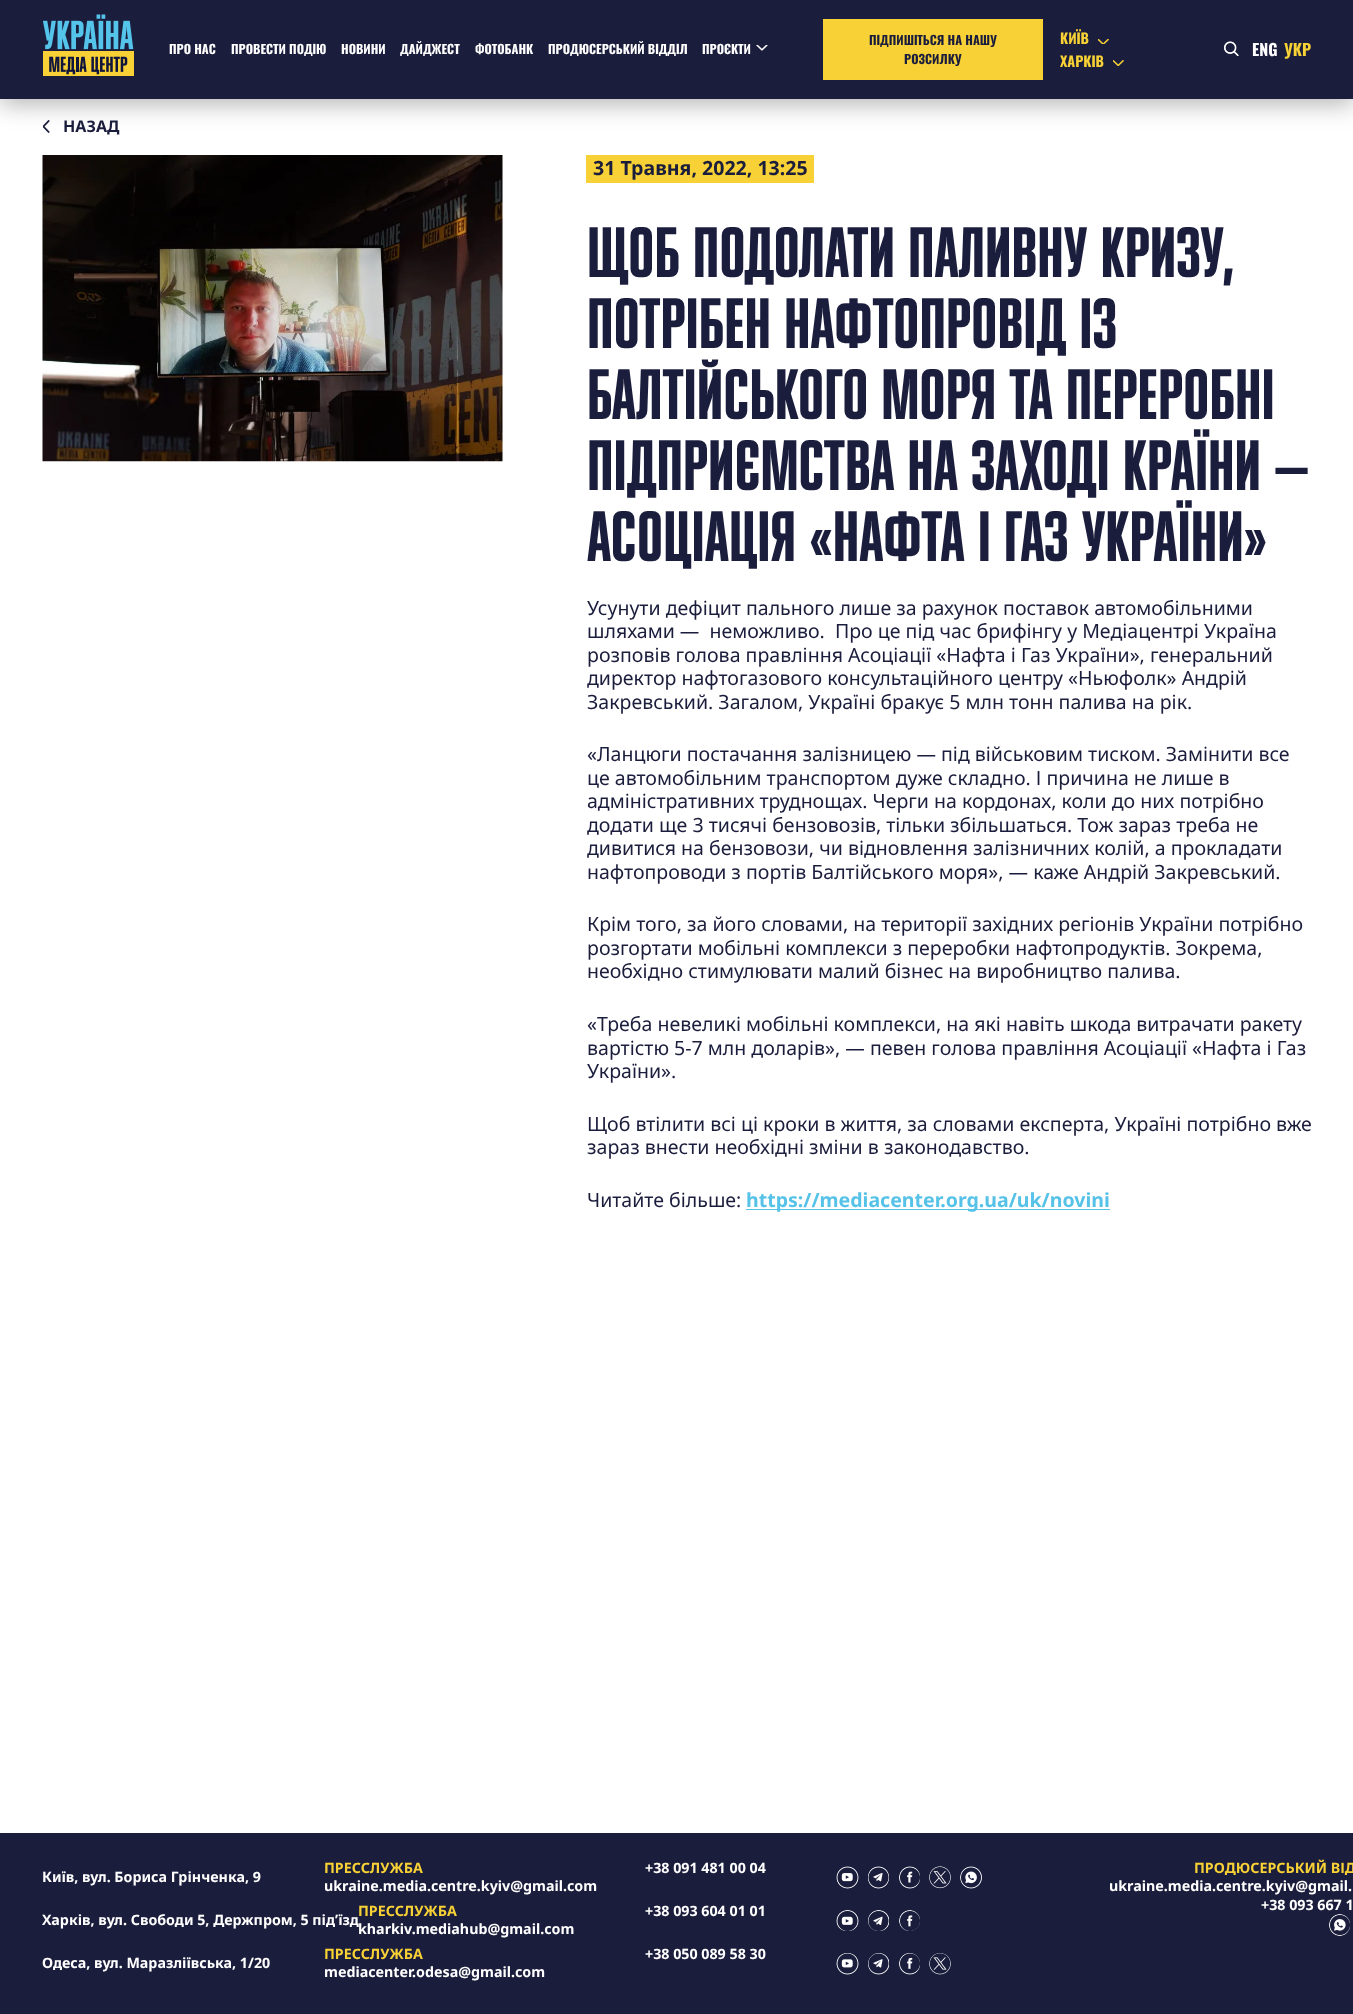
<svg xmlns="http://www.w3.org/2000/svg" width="1353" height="2014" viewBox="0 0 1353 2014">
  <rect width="100%" height="100%" fill="rgb(255,255,255)"/>
  <image x="43" y="120" width="7" height="13" href="pic6.png"/>
  <rect x="0" y="5" width="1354" height="99" fill="rgba(0,0,0,0.3)" filter="blur(12.5px)"/>
  <rect x="0" y="0" width="1353" height="99" fill="rgb(27,29,60)"/>
  <image x="43" y="14" width="91" height="62" href="pic1.png"/>
  <g font-family="Oswald" font-size="12.5" font-weight="bold" fill="rgb(255,255,255)">
    <text x="169" y="54">ПРО НАС</text>
    <text x="231" y="54">ПРОВЕСТИ ПОДІЮ</text>
    <text x="341" y="54">НОВИНИ</text>
    <text x="400" y="54">ДАЙДЖЕСТ</text>
    <text x="475" y="54">ФОТОБАНК</text>
    <text x="548" y="54">ПРОДЮСЕРСЬКИЙ ВІДДІЛ</text>
    <text x="702" y="54">ПРОЄКТИ</text>
  </g>
  <image x="756" y="45" width="12" height="6" href="pic2.png"/>
  <rect x="823" y="19" width="220" height="61" fill="rgb(247,209,53)"/>
  <g font-family="Oswald" font-size="12.5" font-weight="bold" fill="rgb(27,29,60)">
    <text x="869" y="45">ПІДПИШІТЬСЯ НА НАШУ</text>
    <text x="904" y="64">РОЗСИЛКУ</text>
  </g>
  <text x="1060" y="44" font-family="Oswald" font-size="14.25" font-weight="bold" fill="rgb(247,209,53)">КИЇВ</text>
  <image x="1098" y="39" width="11" height="5" href="pic3.png"/>
  <text x="1060" y="67" font-family="Oswald" font-size="14.25" font-weight="bold" fill="rgb(247,209,53)">ХАРКІВ</text>
  <image x="1113" y="60" width="11" height="6" href="pic4.png"/>
  <image x="1224" y="41" width="15" height="15" href="pic5.png"/>
  <text x="1252" y="56" font-family="Oswald" font-size="16" font-weight="bold" fill="rgb(255,255,255)">ENG</text>
  <text x="1284" y="56" font-family="Oswald" font-size="16" font-weight="bold" fill="rgb(247,209,53)">УКР</text>
  <text x="63" y="132" font-family="Noto Sans" font-size="16" font-weight="bold" fill="rgb(27,29,60)">НАЗАД</text>
  <image x="42" y="155" width="461" height="307" href="pic7.png"/>
  <rect x="586" y="155" width="228" height="28" fill="rgb(247,209,53)"/>
  <text x="593" y="175" font-family="Noto Sans" font-size="19.55" font-weight="bold" fill="rgb(27,29,60)">31 Травня, 2022, 13:25</text>
  <g font-family="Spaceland" font-size="71" font-weight="bold" fill="rgb(27,29,60)">
    <text>
      <tspan x="587" y="277">ЩОБ ПОДОЛАТИ ПАЛИВНУ КРИЗУ,</tspan>
      <tspan x="587" y="348">ПОТРІБЕН НАФТОПРОВІД ІЗ</tspan>
      <tspan x="587" y="419">БАЛТІЙСЬКОГО МОРЯ ТА ПЕРЕРОБНІ</tspan>
      <tspan x="587" y="490">ПІДПРИЄМСТВА НА ЗАХОДІ КРАЇНИ —</tspan>
      <tspan x="587" y="561">АСОЦІАЦІЯ «НАФТА І ГАЗ УКРАЇНИ»</tspan>
    </text>
  </g>
  <g font-family="Noto Sans" font-size="19.55" fill="rgb(27,29,60)">
    <text xml:space="preserve"><tspan x="587" y="615">Усунути дефіцит пального лише за рахунок поставок автомобільними</tspan><tspan x="587" y="638">шляхами —  неможливо.  Про це під час брифінгу у Медіацентрі Україна</tspan><tspan x="587" y="662">розповів голова правління Асоціації «Нафта і Газ України», генеральний</tspan><tspan x="587" y="685">директор нафтогазового консультаційного центру «Ньюфолк» Андрій</tspan><tspan x="587" y="709">Закревський. Загалом, Україні бракує 5 млн тонн палива на рік.</tspan></text>
    <text>
      <tspan x="587" y="761">«Ланцюги постачання залізницею — під військовим тиском. Замінити все</tspan>
      <tspan x="587" y="785">це автомобільним транспортом дуже складно. І причина не лише в</tspan>
      <tspan x="587" y="808">адміністративних труднощах. Черги на кордонах, коли до них потрібно</tspan>
      <tspan x="587" y="832">додати ще 3 тисячі бензовозів, тільки збільшаться. Тож зараз треба не</tspan>
      <tspan x="587" y="855">дивитися на бензовози, чи відновлення залізничних колій, а прокладати</tspan>
      <tspan x="587" y="879">нафтопроводи з портів Балтійського моря», — каже Андрій Закревський.</tspan>
    </text>
    <text>
      <tspan x="587" y="931">Крім того, за його словами, на території західних регіонів України потрібно</tspan>
      <tspan x="587" y="955">розгортати мобільні комплекси з переробки нафтопродуктів. Зокрема,</tspan>
      <tspan x="587" y="978">необхідно стимулювати малий бізнес на виробництво палива.</tspan>
    </text>
    <text>
      <tspan x="587" y="1031">«Треба невеликі мобільні комплекси, на які навіть шкода витрачати ракету</tspan>
      <tspan x="587" y="1055">вартістю 5-7 млн доларів», — певен голова правління Асоціації «Нафта і Газ</tspan>
      <tspan x="587" y="1078">України».</tspan>
    </text>
    <text>
      <tspan x="587" y="1131">Щоб втілити всі ці кроки в життя, за словами експерта, Україні потрібно вже</tspan>
      <tspan x="587" y="1154">зараз внести необхідні зміни в законодавство.</tspan>
    </text>
    <text x="587" y="1207">Читайте більше:</text>
  </g>
  <rect x="746" y="1209" width="364" height="1" fill="rgb(86,194,232)"/>
  <text x="746" y="1207" font-family="Noto Sans" font-size="19.55" font-weight="bold" fill="rgb(86,194,232)">https://mediacenter.org.ua/uk/novini</text>
  <rect x="0" y="1833" width="1353" height="181" fill="rgb(27,29,60)"/>
  <text x="42" y="1882" font-family="Noto Sans" font-size="14.25" font-weight="bold" fill="rgb(255,255,255)">Київ, вул. Бориса Грінченка, 9</text>
  <text x="324" y="1873" font-family="Noto Sans" font-size="14.25" font-weight="bold" fill="rgb(247,209,53)">ПРЕССЛУЖБА</text>
  <g font-family="Noto Sans" font-size="14.25" font-weight="bold" fill="rgb(255,255,255)">
    <text x="324" y="1891">ukraine.media.centre.kyiv@gmail.com</text>
    <text x="645" y="1873">+38 091 481 00 04</text>
  </g>
  <image x="836" y="1866" width="23" height="23" href="pic8.png"/>
  <image x="868" y="1866" width="21" height="23" href="pic9.png"/>
  <image x="899" y="1866" width="21" height="23" href="pic10.png"/>
  <image x="929" y="1866" width="22" height="23" href="pic11.png"/>
  <image x="960" y="1866" width="22" height="23" href="pic12.png"/>
  <text x="1194" y="1873" font-family="Noto Sans" font-size="14.25" font-weight="bold" fill="rgb(247,209,53)">ПРОДЮСЕРСЬКИЙ ВІД</text>
  <g font-family="Noto Sans" font-size="14.25" font-weight="bold" fill="rgb(255,255,255)">
    <text x="1109" y="1891">ukraine.media.centre.kyiv@gmail.</text>
    <text x="1261" y="1910">+38 093 667 1</text>
  </g>
  <image x="1329" y="1914" width="21" height="22" href="pic13.png"/>
  <text x="42" y="1925" font-family="Noto Sans" font-size="14.25" font-weight="bold" fill="rgb(255,255,255)">Харків, вул. Свободи 5, Держпром, 5 підʼїзд</text>
  <text x="358" y="1916" font-family="Noto Sans" font-size="14.25" font-weight="bold" fill="rgb(247,209,53)">ПРЕССЛУЖБА</text>
  <g font-family="Noto Sans" font-size="14.25" font-weight="bold" fill="rgb(255,255,255)">
    <text x="358" y="1934">kharkiv.mediahub@gmail.com</text>
    <text x="645" y="1916">+38 093 604 01 01</text>
  </g>
  <image x="836" y="1910" width="23" height="21" href="pic14.png"/>
  <image x="868" y="1910" width="21" height="21" href="pic15.png"/>
  <image x="899" y="1910" width="21" height="21" href="pic16.png"/>
  <text x="42" y="1968" font-family="Noto Sans" font-size="14.25" font-weight="bold" fill="rgb(255,255,255)">Одеса, вул. Маразліївська, 1/20</text>
  <text x="324" y="1959" font-family="Noto Sans" font-size="14.25" font-weight="bold" fill="rgb(247,209,53)">ПРЕССЛУЖБА</text>
  <g font-family="Noto Sans" font-size="14.25" font-weight="bold" fill="rgb(255,255,255)">
    <text x="324" y="1977">mediacenter.odesa@gmail.com</text>
    <text x="645" y="1959">+38 050 089 58 30</text>
  </g>
  <image x="836" y="1953" width="23" height="22" href="pic17.png"/>
  <image x="868" y="1953" width="21" height="22" href="pic18.png"/>
  <image x="899" y="1953" width="21" height="22" href="pic19.png"/>
  <image x="929" y="1953" width="22" height="22" href="pic20.png"/>
</svg>
